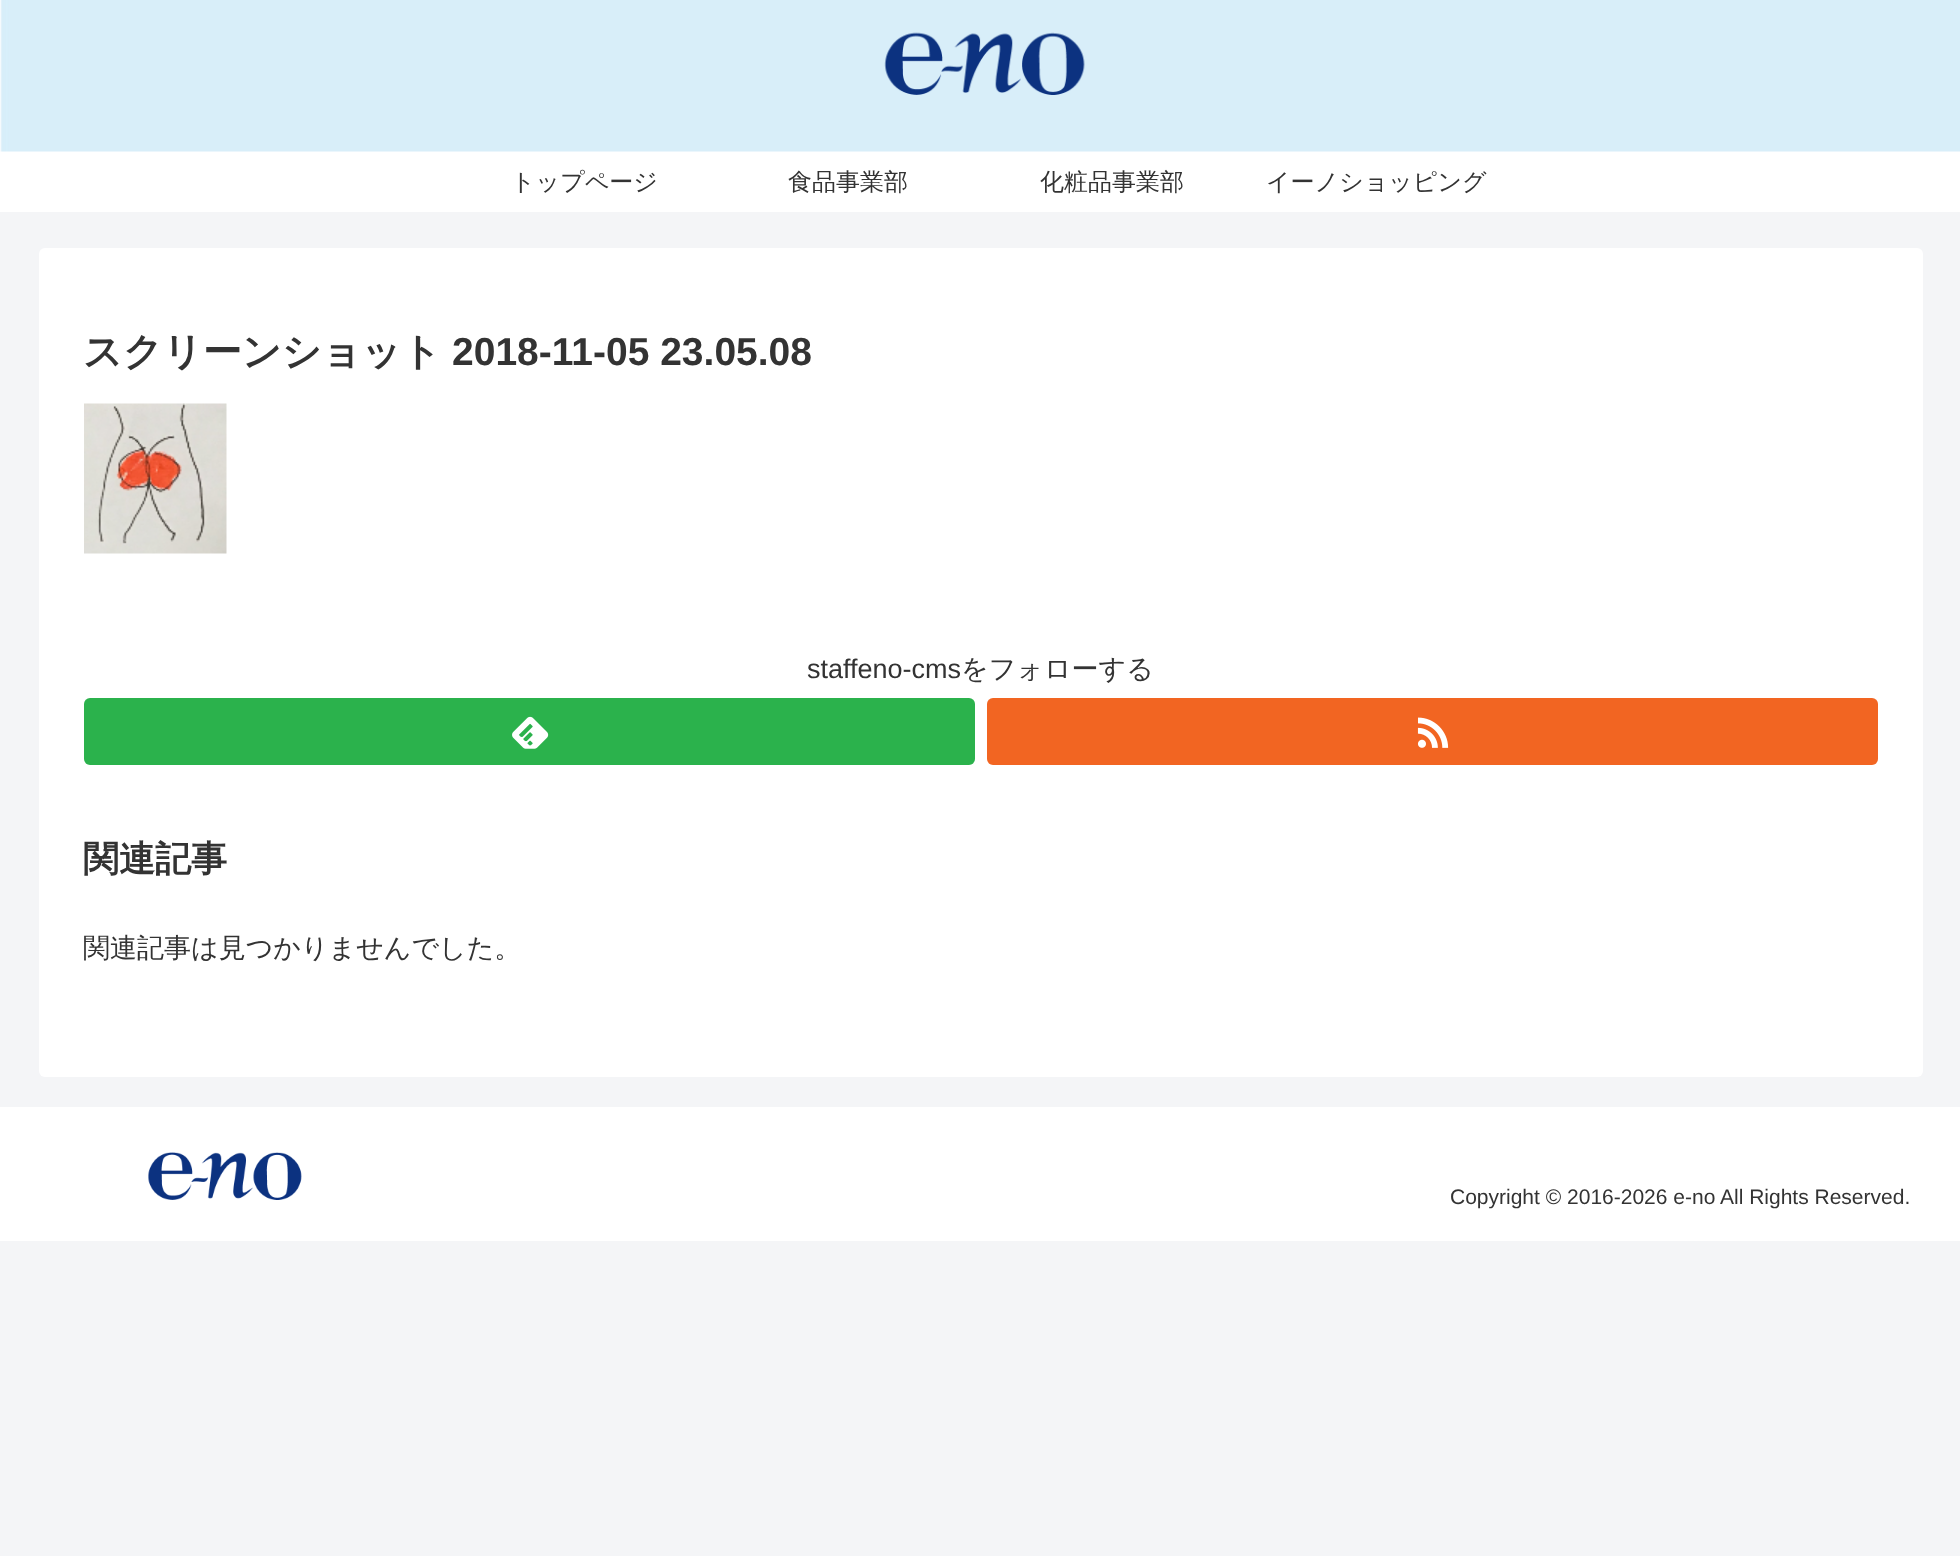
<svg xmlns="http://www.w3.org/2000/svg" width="1960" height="1556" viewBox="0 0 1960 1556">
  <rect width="100%" height="100%" fill="rgb(244,245,247)"/>
  <rect x="0" y="151" width="1960" height="61" fill="rgb(255,255,255)"/>
  <image x="0" y="0" width="1960" height="152" href="pic1.png"/>
  <image x="884" y="32" width="201" height="63" href="pic2.png"/>
  <g font-family="WenQuanYi Zen Hei" font-size="24" font-weight="500" fill="rgb(51,51,51)">
    <text x="511" y="190">トップページ</text>
    <text x="788" y="190">食品事業部</text>
    <text x="1040" y="190">化粧品事業部</text>
    <text x="1266" y="190">イーノショッピング</text>
  </g>
  <rect x="39" y="248" width="1884" height="829" rx="6" fill="rgb(255,255,255)"/>
  <text x="83" y="365" font-family="WenQuanYi Zen Hei" font-size="39" font-weight="bold" fill="rgb(51,51,51)">スクリーンショット</text>
  <text x="452" y="365" font-family="Liberation Sans" font-size="39" font-weight="bold" fill="rgb(51,51,51)">2018-11-05 23.05.08</text>
  <image x="84" y="403" width="143" height="151" href="pic3.png"/>
  <text x="807" y="678" font-family="Liberation Sans" font-size="27" fill="rgb(51,51,51)">staffeno-cms</text>
  <text x="961" y="678" font-family="WenQuanYi Zen Hei" font-size="27" font-weight="500" fill="rgb(51,51,51)">をフォローする</text>
  <rect x="84" y="698" width="891" height="67" rx="6" fill="rgb(43,178,76)"/>
  <image x="512" y="716" width="37" height="33" href="pic4.png"/>
  <rect x="987" y="698" width="891" height="67" rx="6" fill="rgb(242,101,34)"/>
  <image x="1417" y="717" width="32" height="31" href="pic5.png"/>
  <text x="83" y="871" font-family="WenQuanYi Zen Hei" font-size="36" font-weight="bold" fill="rgb(51,51,51)">関連記事</text>
  <text x="83" y="957" font-family="WenQuanYi Zen Hei" font-size="27" font-weight="500" fill="rgb(51,51,51)">関連記事は見つかりませんでした。</text>
  <rect x="0" y="1107" width="1960" height="134" fill="rgb(255,255,255)"/>
  <image x="148" y="1152" width="154" height="48" href="pic6.png"/>
  <text x="1450" y="1204" font-family="Liberation Sans" font-size="21" fill="rgb(51,51,51)">Copyright © 2016-2026 e-no All Rights Reserved.</text>
</svg>
